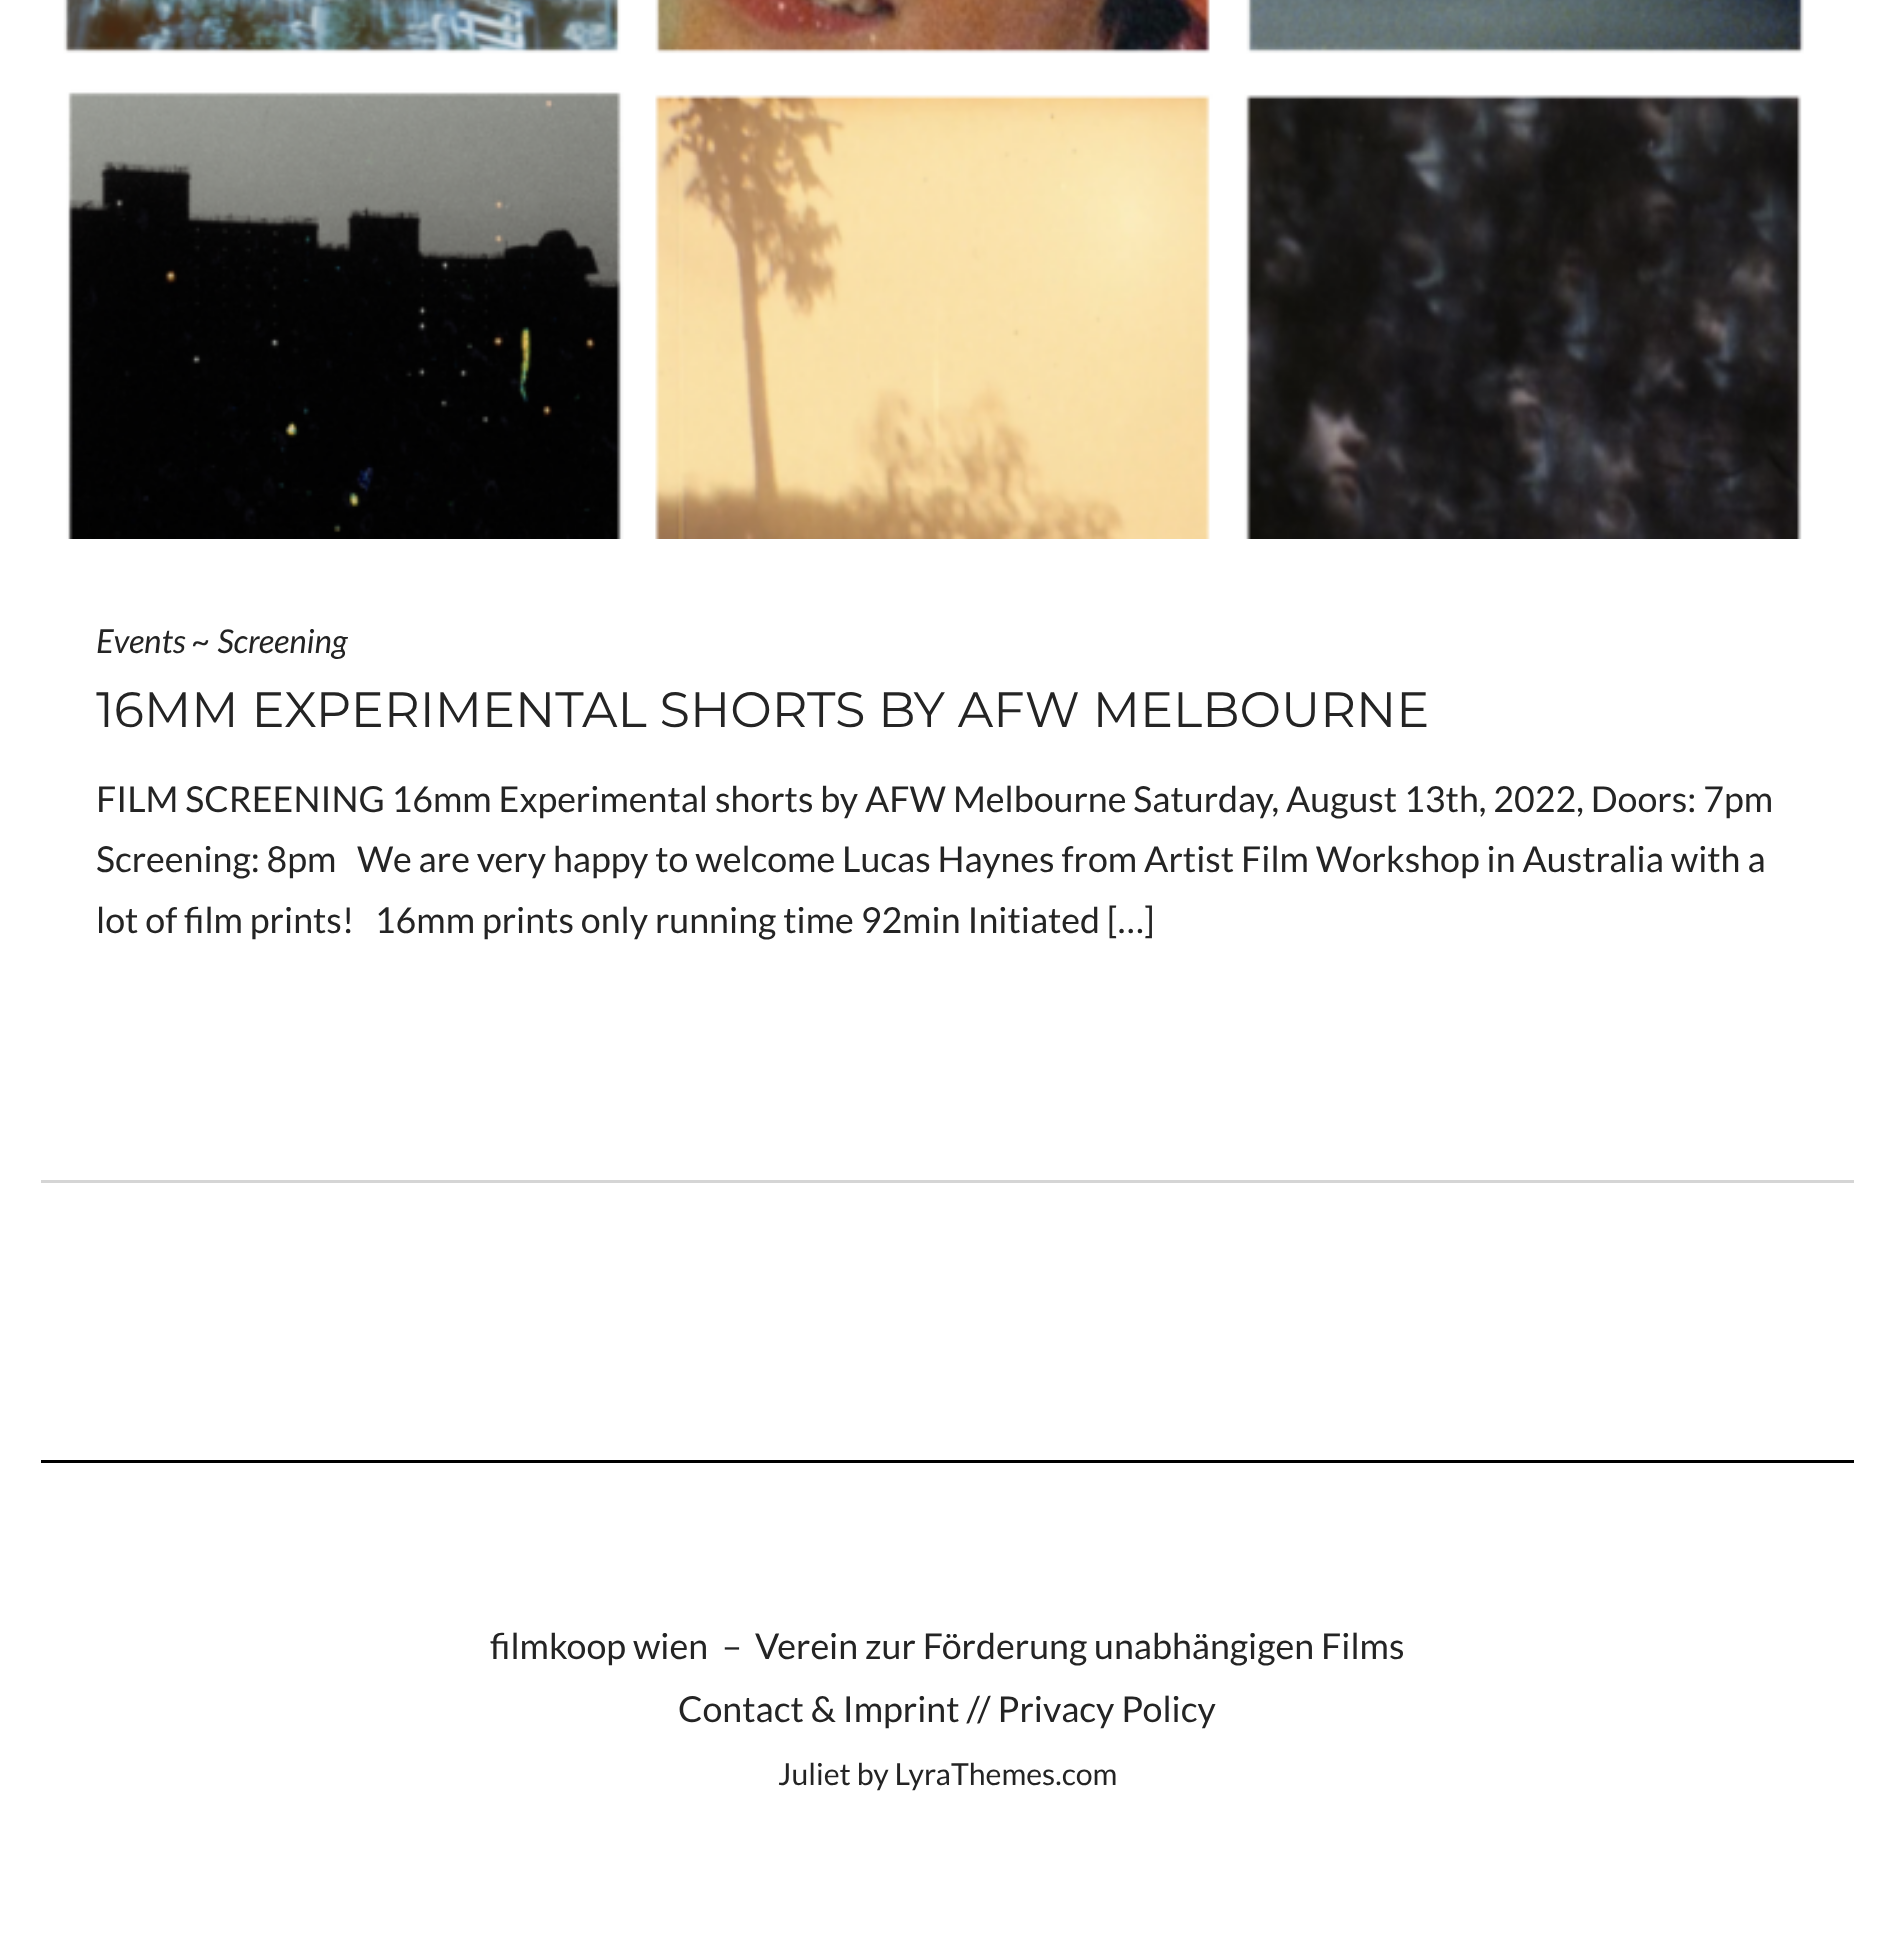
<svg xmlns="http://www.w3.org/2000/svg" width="1894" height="1941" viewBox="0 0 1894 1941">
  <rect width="100%" height="100%" fill="rgb(255,255,255)"/>
  <rect x="41" y="1180" width="1813" height="3" fill="rgb(213,213,213)"/>
  <image x="63" y="0" width="1741" height="539" href="pic1.png"/>
  <text x="96" y="653" font-family="Lato" font-size="33" font-style="italic" fill="rgb(36,36,36)">Events ~ Screening</text>
  <text x="96" y="727" font-family="Montserrat" font-size="49.5" fill="rgb(36,36,36)">16MM EXPERIMENTAL SHORTS BY AFW MELBOURNE</text>
  <g font-family="Lato" font-size="35.75" fill="rgb(36,36,36)">
    <text xml:space="preserve"><tspan x="96" y="812">FILM SCREENING 16mm Experimental shorts by AFW Melbourne Saturday, August 13th, 2022, Doors: 7pm</tspan><tspan x="96" y="872">Screening: 8pm   We are very happy to welcome Lucas Haynes from Artist Film Workshop in Australia with a</tspan><tspan x="96" y="933">lot of film prints!   16mm prints only running time 92min Initiated […]</tspan></text>
  </g>
  <rect x="41" y="1460" width="1813" height="3" fill="rgb(0,0,0)"/>
  <g font-family="Lato" font-size="35.75" fill="rgb(36,36,36)">
    <text x="490" y="1659">filmkoop wien</text>
    <text x="722" y="1659">–</text>
    <text x="755" y="1659">Verein zur Förderung unabhängigen Films</text>
    <text x="678" y="1722">Contact &amp; Imprint // Privacy Policy</text>
  </g>
  <text x="778" y="1785" font-family="Lato" font-size="30.25" fill="rgb(36,36,36)">Juliet by LyraThemes.com</text>
</svg>
